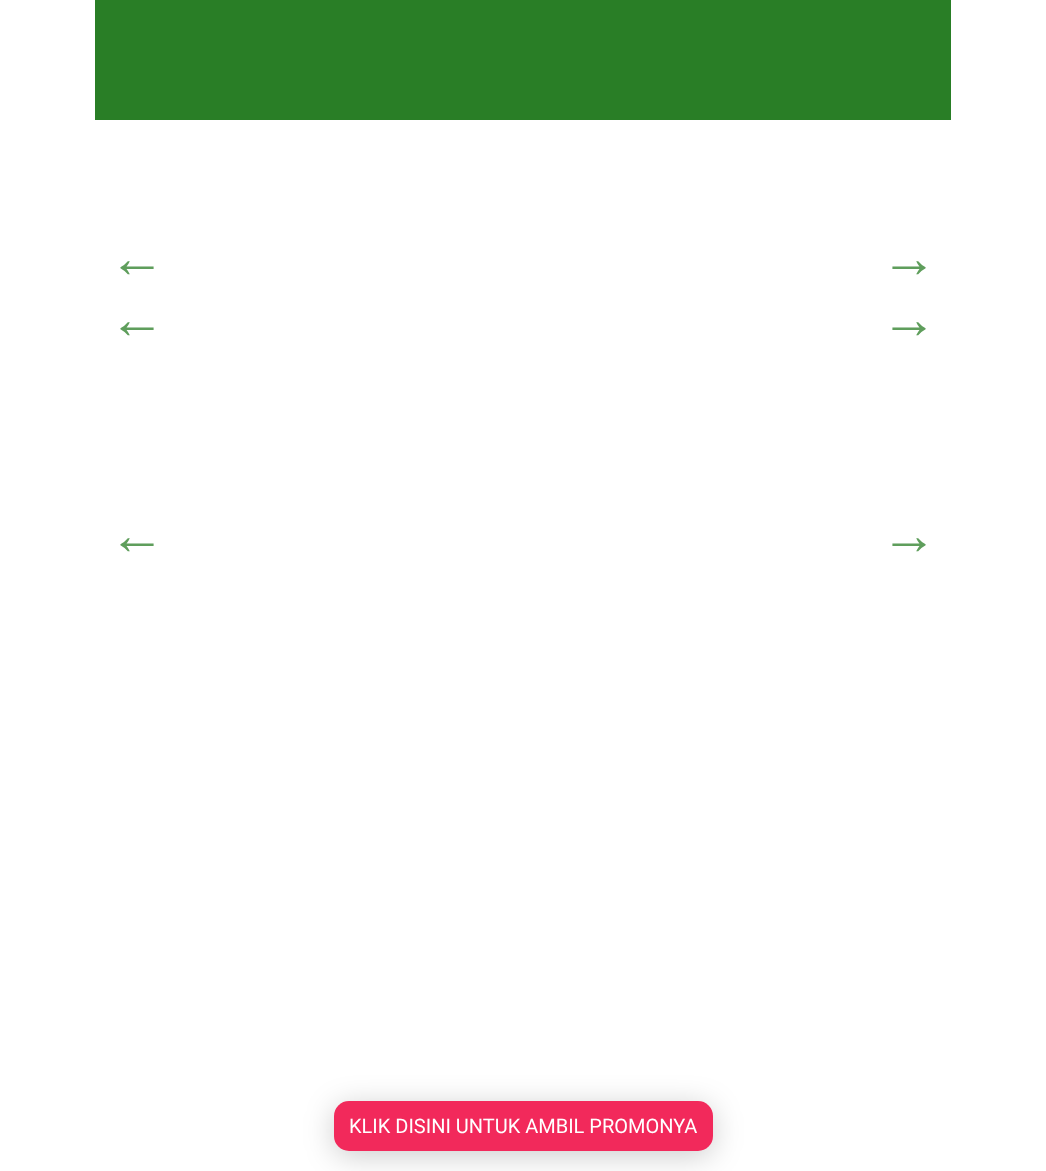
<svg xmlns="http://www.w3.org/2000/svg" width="1046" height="1171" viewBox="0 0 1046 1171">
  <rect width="100%" height="100%" fill="rgb(255,255,255)"/>
  <rect x="95" y="0" width="856" height="120" fill="rgb(41,126,38)"/>
  <g font-family="Liberation Serif" font-size="56" fill="rgb(95,158,92)">
    <text x="109" y="277">←</text>
    <text x="881" y="277">→</text>
    <text x="109" y="338">←</text>
    <text x="881" y="338">→</text>
    <text x="109" y="554">←</text>
    <text x="881" y="554">→</text>
  </g>
  <rect x="334" y="1106" width="379" height="50" rx="15" fill="rgba(0,0,0,0.2)" filter="blur(15px)"/>
  <rect x="334" y="1101" width="379" height="50" rx="15" fill="rgb(242,41,91)"/>
  <text x="349" y="1133" font-family="Roboto" font-size="20" fill="rgb(255,255,255)">KLIK DISINI UNTUK AMBIL PROMONYA</text>
</svg>
